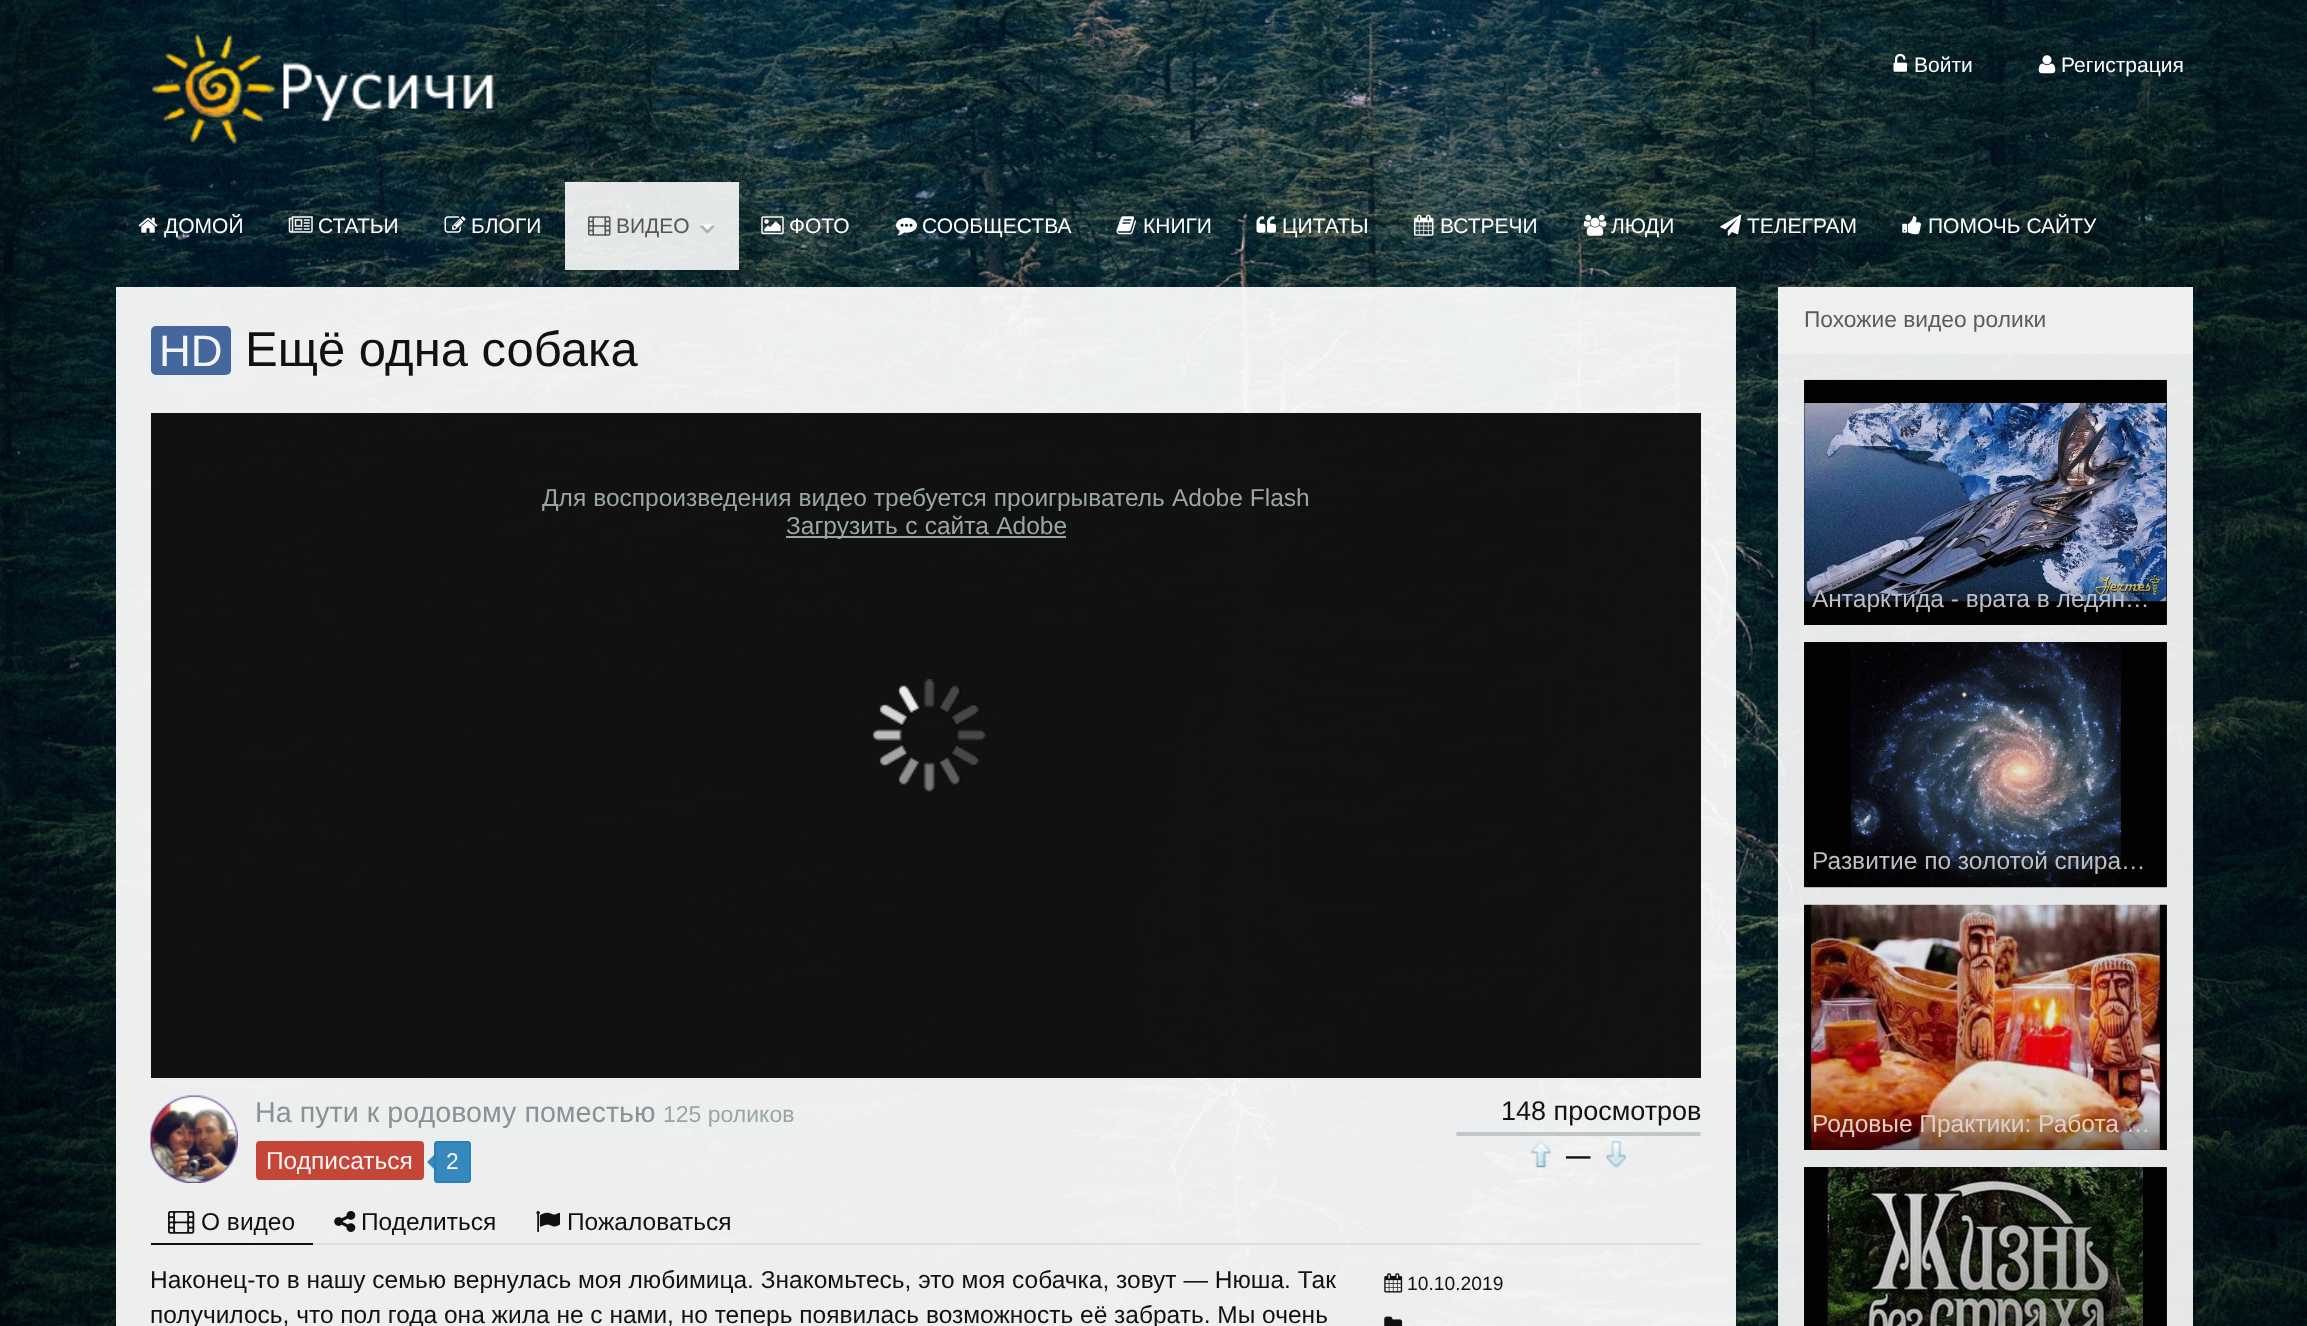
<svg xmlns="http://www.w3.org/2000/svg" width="2307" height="1326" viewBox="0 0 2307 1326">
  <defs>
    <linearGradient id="g1" gradientUnits="userSpaceOnUse" x1="1985" y1="581" x2="1985" y2="625"><stop offset="0" stop-color="rgb(0,0,0)" stop-opacity="0"/><stop offset="1" stop-color="rgb(0,0,0)" stop-opacity="0.47"/></linearGradient>
    <linearGradient id="g2" gradientUnits="userSpaceOnUse" x1="1985" y1="844" x2="1985" y2="887"><stop offset="0" stop-color="rgb(0,0,0)" stop-opacity="0"/><stop offset="1" stop-color="rgb(0,0,0)" stop-opacity="0.47"/></linearGradient>
    <linearGradient id="g3" gradientUnits="userSpaceOnUse" x1="1985" y1="1106" x2="1985" y2="1150"><stop offset="0" stop-color="rgb(0,0,0)" stop-opacity="0"/><stop offset="1" stop-color="rgb(0,0,0)" stop-opacity="0.47"/></linearGradient>
  </defs>
  <rect width="100%" height="100%" fill="rgb(255,255,255)"/>
  <image x="0" y="0" width="2307" height="1326" href="pic1.png"/>
  <image x="151" y="34" width="343" height="110" href="pic2.png"/>
  <image x="1893" y="53" width="14" height="19" href="pic3.png"/>
  <text x="1914" y="72" font-family="Liberation Sans" font-size="21" fill="rgb(253,253,253)">Войти</text>
  <image x="2038" y="55" width="18" height="19" href="pic4.png"/>
  <text x="2061" y="72" font-family="Liberation Sans" font-size="21" fill="rgb(253,253,253)">Регистрация</text>
  <image x="138" y="217" width="20" height="16" href="pic5.png"/>
  <text x="164" y="233" font-family="Liberation Sans" font-size="21" fill="rgb(253,253,253)">ДОМОЙ</text>
  <image x="288" y="216" width="25" height="17" href="pic6.png"/>
  <text x="318" y="233" font-family="Liberation Sans" font-size="21" fill="rgb(253,253,253)">СТАТЬИ</text>
  <image x="444" y="216" width="22" height="17" href="pic7.png"/>
  <text x="471" y="233" font-family="Liberation Sans" font-size="21" fill="rgb(253,253,253)">БЛОГИ</text>
  <rect x="565" y="182" width="174" height="88" fill="rgba(255,255,255,0.89)"/>
  <image x="699" y="223" width="16" height="11" href="pic8.png"/>
  <image x="588" y="216" width="23" height="20" href="pic9.png"/>
  <text x="616" y="233" font-family="Liberation Sans" font-size="21" fill="rgb(86,86,86)">ВИДЕО</text>
  <image x="761" y="216" width="23" height="19" href="pic10.png"/>
  <text x="789" y="233" font-family="Liberation Sans" font-size="21" fill="rgb(253,253,253)">ФОТО</text>
  <image x="896" y="217" width="21" height="19" href="pic11.png"/>
  <text x="922" y="233" font-family="Liberation Sans" font-size="21" fill="rgb(253,253,253)">СООБЩЕСТВА</text>
  <image x="1116" y="216" width="20" height="19" href="pic12.png"/>
  <text x="1143" y="233" font-family="Liberation Sans" font-size="21" fill="rgb(253,253,253)">КНИГИ</text>
  <image x="1256" y="216" width="20" height="17" href="pic13.png"/>
  <text x="1282" y="233" font-family="Liberation Sans" font-size="21" fill="rgb(253,253,253)">ЦИТАТЫ</text>
  <image x="1414" y="214" width="20" height="22" href="pic14.png"/>
  <text x="1440" y="233" font-family="Liberation Sans" font-size="21" fill="rgb(253,253,253)">ВСТРЕЧИ</text>
  <image x="1583" y="214" width="24" height="22" href="pic15.png"/>
  <text x="1611" y="233" font-family="Liberation Sans" font-size="21" fill="rgb(253,253,253)">ЛЮДИ</text>
  <image x="1720" y="214" width="22" height="22" href="pic16.png"/>
  <text x="1747" y="233" font-family="Liberation Sans" font-size="21" fill="rgb(253,253,253)">ТЕЛЕГРАМ</text>
  <image x="1902" y="216" width="19" height="19" href="pic17.png"/>
  <text x="1928" y="233" font-family="Liberation Sans" font-size="21" fill="rgb(253,253,253)">ПОМОЧЬ САЙТУ</text>
  <rect x="116" y="287" width="1620" height="1039" fill="rgba(255,255,255,0.93)"/>
  <rect x="151" y="326" width="80" height="49" rx="5" fill="rgba(56,92,148,0.93)"/>
  <text x="159" y="366" font-family="Liberation Sans" font-size="44" fill="rgb(242,244,248)">HD</text>
  <text x="245" y="366" font-family="Liberation Sans" font-size="49" fill="rgb(17,17,17)">Ещё одна собака</text>
  <rect x="151" y="413" width="1550" height="665" fill="rgba(0,0,0,0.93)"/>
  <text x="542" y="506" word-spacing="0.25" font-family="Liberation Sans" font-size="24.5" fill="rgb(153,166,167)">Для воспроизведения видео требуется проигрыватель Adobe Flash</text>
  <rect x="786" y="536" width="280" height="2" fill="rgb(153,166,167)"/>
  <text x="786" y="534" word-spacing="0.5" font-family="Liberation Sans" font-size="24.5" fill="rgb(153,166,167)">Загрузить с сайта Adobe</text>
  <image x="872" y="679" width="114" height="113" href="pic18.png"/>
  <image x="150" y="1095" width="88" height="88" href="pic19.png"/>
  <text x="255" y="1122" font-family="Liberation Sans" font-size="28.7" fill="rgb(135,147,148)">На пути к родовому поместью</text>
  <text x="663" y="1122" font-family="Liberation Sans" font-size="23" fill="rgb(153,166,167)">125 роликов</text>
  <rect x="256" y="1141" width="168" height="39" rx="4" fill="rgba(192,57,43,0.93)"/>
  <text x="266" y="1169" font-family="Liberation Sans" font-size="24.5" fill="rgb(251,242,241)">Подписаться</text>
  <rect x="434" y="1141" width="37" height="42" rx="4" fill="rgba(41,128,185,0.93)"/>
  <rect x="435" y="1142" width="35" height="40" rx="3" fill="none" stroke="rgba(41,128,185,0.93)" stroke-width="2"/>
  <path d="M436 1153V1171L427 1162Z" fill="rgba(41,128,185,0.93)"/>
  <text x="446" y="1169" font-family="Liberation Sans" font-size="22.75" fill="rgb(242,244,248)">2</text>
  <text x="1501" y="1120" font-family="Liberation Sans" font-size="27" fill="rgb(17,17,17)">148 просмотров</text>
  <rect x="1456" y="1132" width="245" height="4" rx="2" fill="rgba(189,195,199,0.93)"/>
  <image x="1530" y="1141" width="21" height="27" href="pic20.png"/>
  <text x="1566" y="1164" font-family="Liberation Sans" font-size="24.5" font-weight="bold" fill="rgb(17,17,17)">—</text>
  <image x="1606" y="1141" width="20" height="27" href="pic21.png"/>
  <rect x="313" y="1243" width="1388" height="2" fill="rgba(221,221,221,0.93)"/>
  <rect x="151" y="1243" width="162" height="2" fill="rgb(16,16,16)"/>
  <image x="168" y="1211" width="27" height="23" href="pic22.png"/>
  <text x="201" y="1230" font-family="Liberation Sans" font-size="24.5" fill="rgb(17,17,17)">О видео</text>
  <image x="334" y="1211" width="22" height="21" href="pic23.png"/>
  <text x="361" y="1230" font-family="Liberation Sans" font-size="24.5" fill="rgb(17,17,17)">Поделиться</text>
  <image x="536" y="1211" width="24" height="21" href="pic24.png"/>
  <g font-family="Liberation Sans" font-size="24.5" fill="rgb(17,17,17)">
    <text x="567" y="1230">Пожаловаться</text>
    <text>
      <tspan x="150" y="1288">Наконец-то в нашу семью вернулась моя любимица. Знакомьтесь, это моя собачка, зовут — Нюша. Так</tspan>
      <tspan x="150" y="1323">получилось, что пол года она жила не с нами, но теперь появилась возможность её забрать. Мы очень</tspan>
    </text>
  </g>
  <image x="1384" y="1273" width="19" height="20" href="pic25.png"/>
  <text x="1407" y="1290" font-family="Liberation Sans" font-size="19.25" fill="rgb(17,17,17)">10.10.2019</text>
  <image x="1384" y="1316" width="19" height="10" href="pic26.png"/>
  <rect x="1778" y="287" width="415" height="1039" fill="rgba(255,255,255,0.9)"/>
  <rect x="1778" y="287" width="415" height="67" fill="rgba(239,239,239,0.9)"/>
  <text x="1804" y="327" font-family="Liberation Sans" font-size="22.75" fill="rgb(92,92,92)">Похожие видео ролики</text>
  <rect x="1804" y="380" width="363" height="245" fill="rgba(0,0,0,0.9)"/>
  <image x="1804" y="379" width="363" height="246" href="pic27.png"/>
  <rect x="1804" y="583" width="363" height="42" fill="url(#g1)"/>
  <text x="1812" y="607" font-family="Liberation Sans" font-size="24.5" fill="rgb(189,191,195)">Антарктида - врата в ледян…</text>
  <rect x="1804" y="642" width="363" height="245" fill="rgba(0,0,0,0.9)"/>
  <image x="1804" y="642" width="363" height="246" href="pic28.png"/>
  <rect x="1804" y="846" width="363" height="41" fill="url(#g2)"/>
  <text x="1812" y="869" font-family="Liberation Sans" font-size="24.5" fill="rgb(189,191,195)">Развитие по золотой спира…</text>
  <rect x="1804" y="905" width="363" height="245" fill="rgba(0,0,0,0.9)"/>
  <image x="1804" y="904" width="363" height="246" href="pic29.png"/>
  <rect x="1804" y="1108" width="363" height="42" fill="url(#g3)"/>
  <text x="1812" y="1132" font-family="Liberation Sans" font-size="24.5" fill="rgb(225,207,199)">Родовые Практики: Работа …</text>
  <rect x="1804" y="1167" width="363" height="159" fill="rgba(0,0,0,0.9)"/>
  <image x="1804" y="1167" width="363" height="159" href="pic30.png"/>
</svg>
